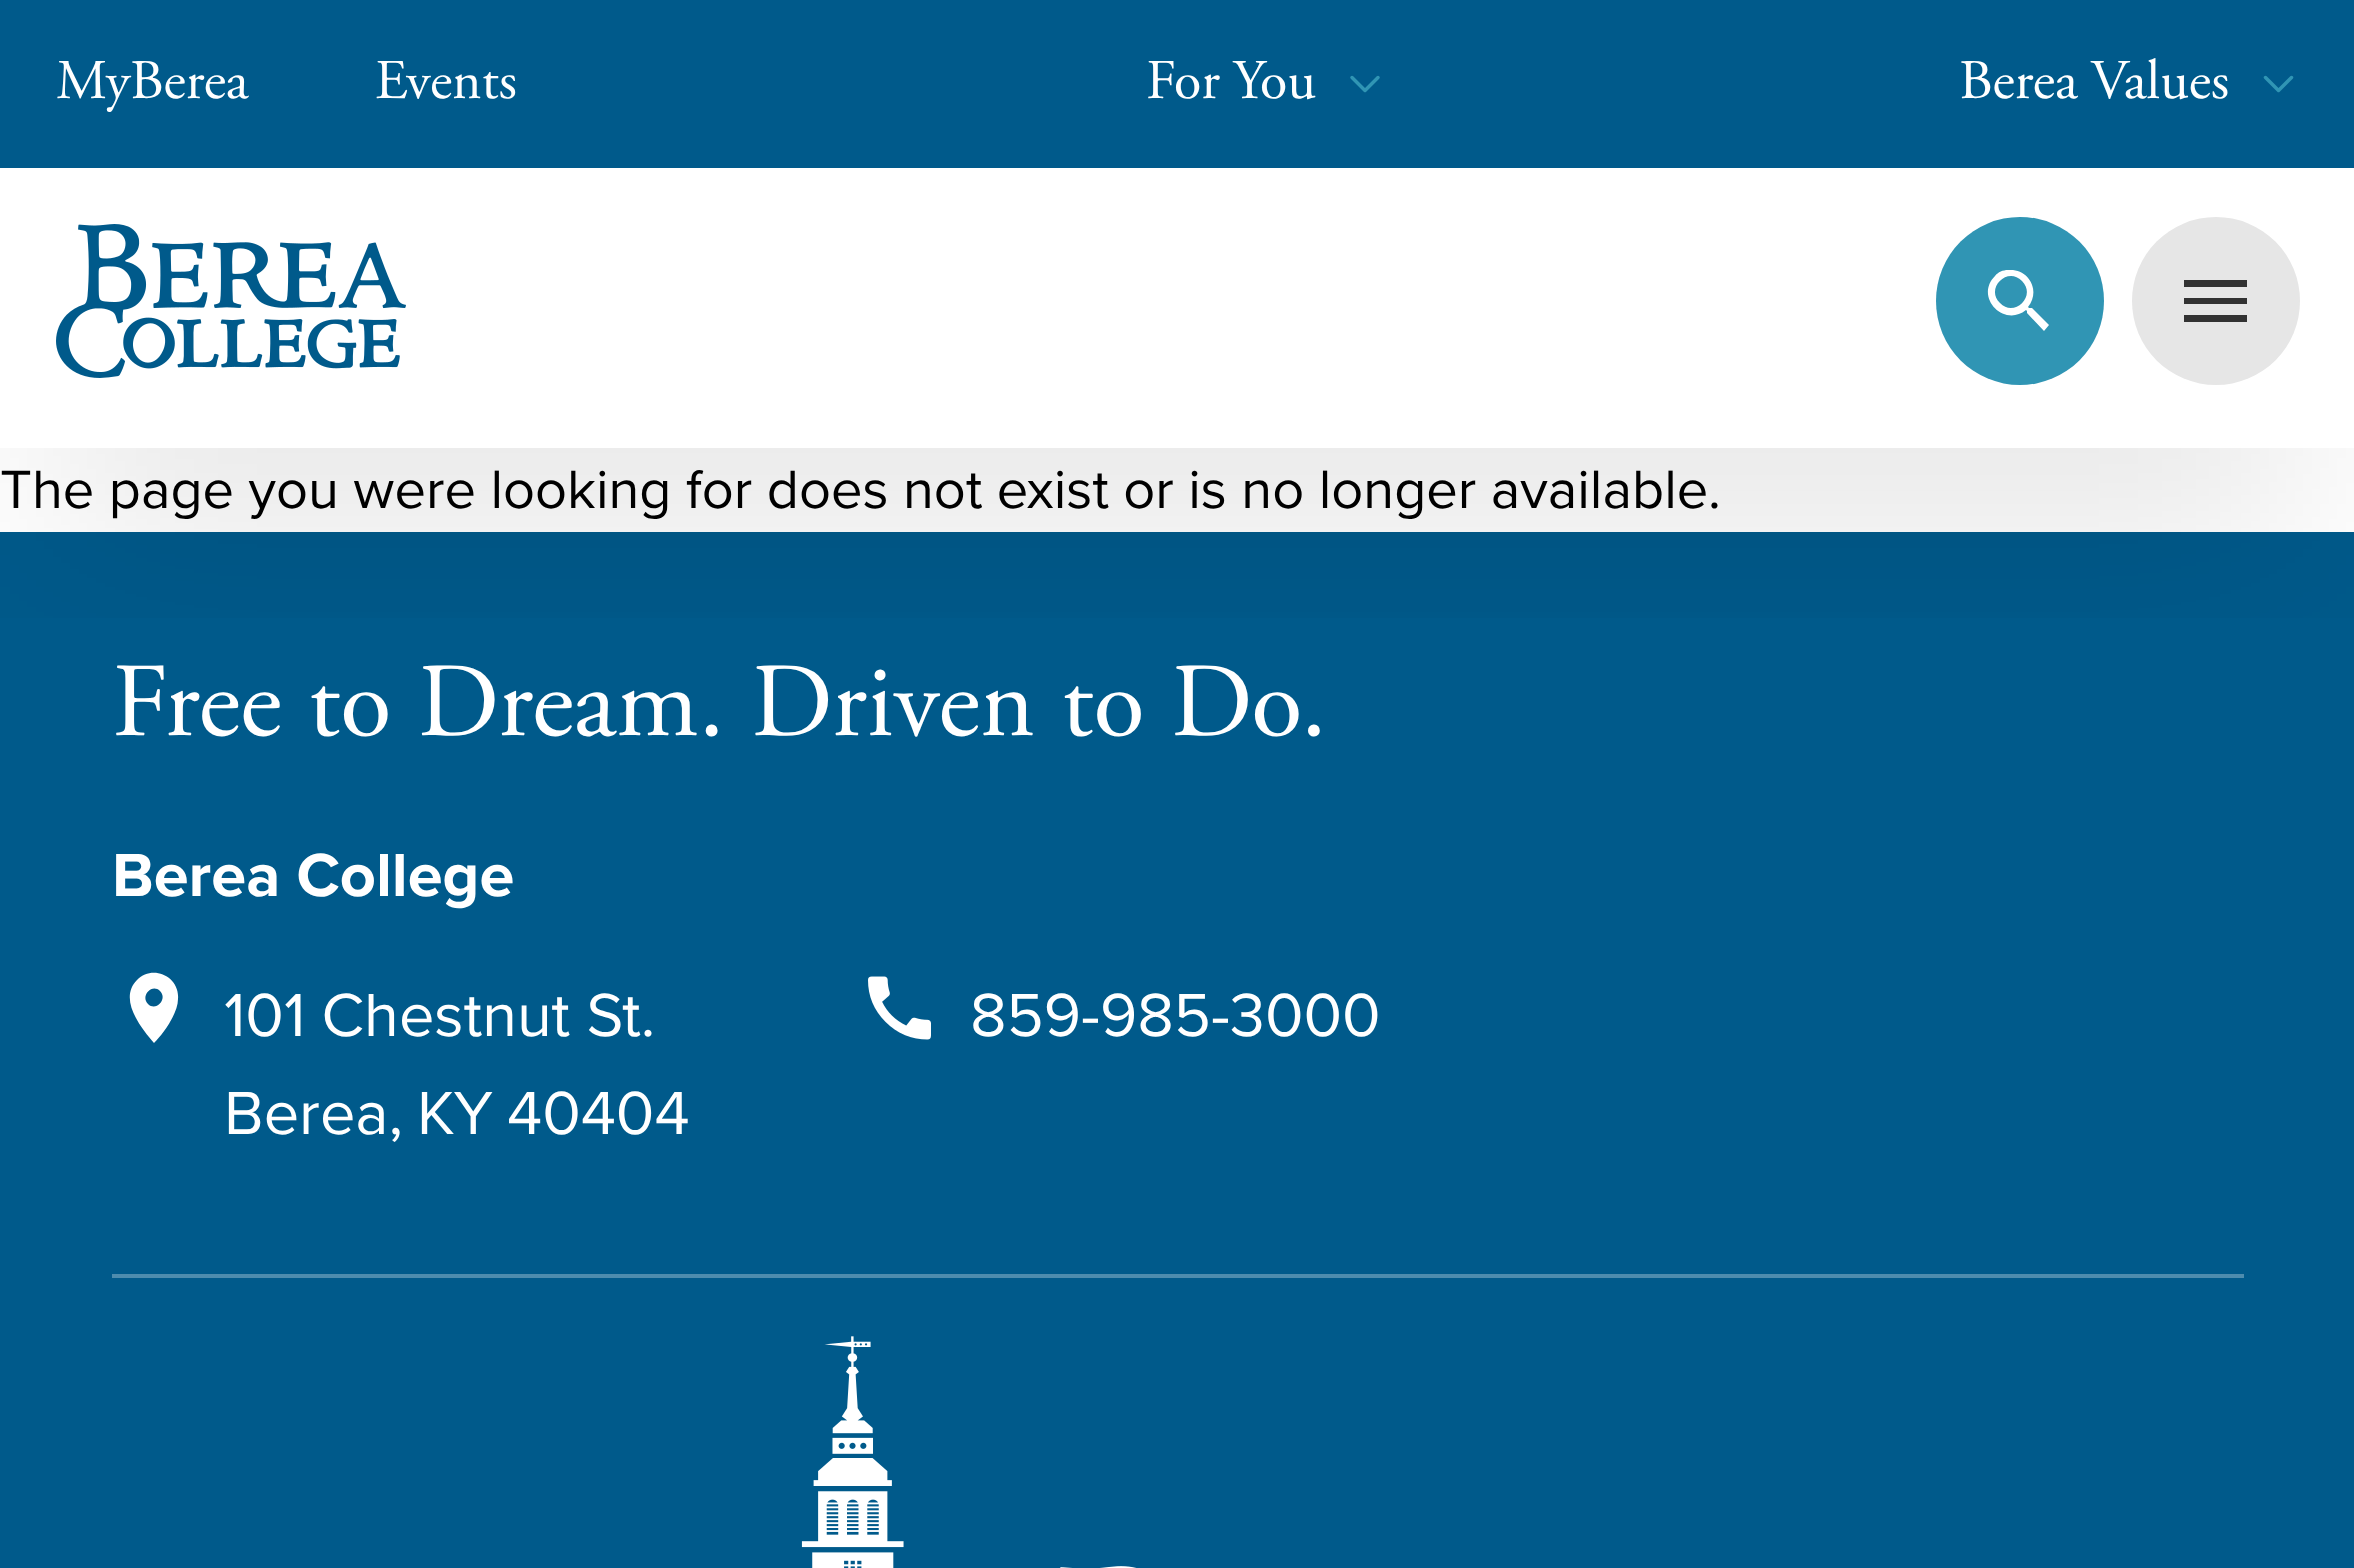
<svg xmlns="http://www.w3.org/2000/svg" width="2354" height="1568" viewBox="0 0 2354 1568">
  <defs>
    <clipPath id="clip1"><rect x="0" y="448" width="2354" height="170"/></clipPath>
  </defs>
  <rect width="100%" height="100%" fill="rgb(255,255,255)"/>
  <rect x="0" y="0" width="2354" height="168" fill="rgb(0,90,139)"/>
  <rect x="0" y="532" width="2354" height="1036" fill="rgb(0,90,139)"/>
  <g clip-path="url(#clip1)">
    <rect x="53" y="343" width="2250" height="175" fill="rgba(0,0,0,0.12)" filter="blur(105px)"/>
  </g>
  <image x="56" y="224" width="350" height="154" href="pic1.png"/>
  <circle cx="2020" cy="301" r="84" fill="rgb(48,149,180)"/>
  <path d="M2000 303C2014 318 2037 296 2022 281C2007 266 1985 289 2000 303ZM2032 308L2049 325L2044 331L2027 313V311L2026 310C2004 328 1974 297 1995 276C1998 272 2003 270 2008 270C2029 268 2041 291 2028 307L2029 308Z" fill="rgb(255,255,255)"/>
  <circle cx="2216" cy="301" r="84" fill="rgb(230,230,230)"/>
  <path d="M2184 280H2247V287H2184ZM2184 304V298H2247V304ZM2184 322V315H2247V322Z" fill="rgb(50,50,50)"/>
  <g font-family="Adobe Garamond" font-size="56" fill="rgb(255,255,255)">
    <text x="56" y="98">MyBerea</text>
    <text x="375" y="98">Events</text>
    <text x="1146" y="98">For You</text>
  </g>
  <path d="M1378 77.5L1365 90.5L1352 77.5" fill="none" stroke="rgb(48,149,180)" stroke-width="3.5" stroke-linecap="round" stroke-linejoin="round"/>
  <text x="1959" y="98" font-family="Adobe Garamond" font-size="56" fill="rgb(255,255,255)">Berea Values</text>
  <path d="M2291.5 77.5L2278.5 90.5L2265.5 77.5" fill="none" stroke="rgb(48,149,180)" stroke-width="3.5" stroke-linecap="round" stroke-linejoin="round"/>
  <text x="0" y="508" font-family="Proxima Nova" font-size="56" fill="rgb(0,0,0)">The page you were looking for does not exist or is no longer available.</text>
  <text x="112" y="735" font-family="Adobe Garamond" font-size="105" fill="rgb(255,255,255)">Free to Dream. Driven to Do.</text>
  <text x="112" y="896" font-family="Proxima Nova" font-size="63" font-weight="bold" fill="rgb(255,255,255)">Berea College</text>
  <path d="M148 1004C156 1012 168 999 160 991C152 983 140 996 148 1004ZM137 980C152 964 180 976 178 999C178 1013 164 1033 154 1043C141 1028 118 999 137 980Z" fill="rgb(255,255,255)"/>
  <g font-family="Proxima Nova" font-size="63" fill="rgb(255,255,255)">
    <text>
      <tspan x="224" y="1036">101 Chestnut St.</tspan>
      <tspan x="224" y="1134">Berea,</tspan>
    </text>
    <text x="417" y="1134">KY</text>
    <text x="507" y="1134">40404</text>
  </g>
  <image x="868" y="976" width="63" height="64" href="pic2.png"/>
  <text x="970" y="1036" font-family="Proxima Nova" font-size="63" fill="rgb(255,255,255)">859-985-3000</text>
  <rect x="112" y="1274" width="2132" height="4" fill="rgb(77,140,174)"/>
  <image x="801" y="1336" width="336" height="232" href="pic3.png"/>
</svg>
